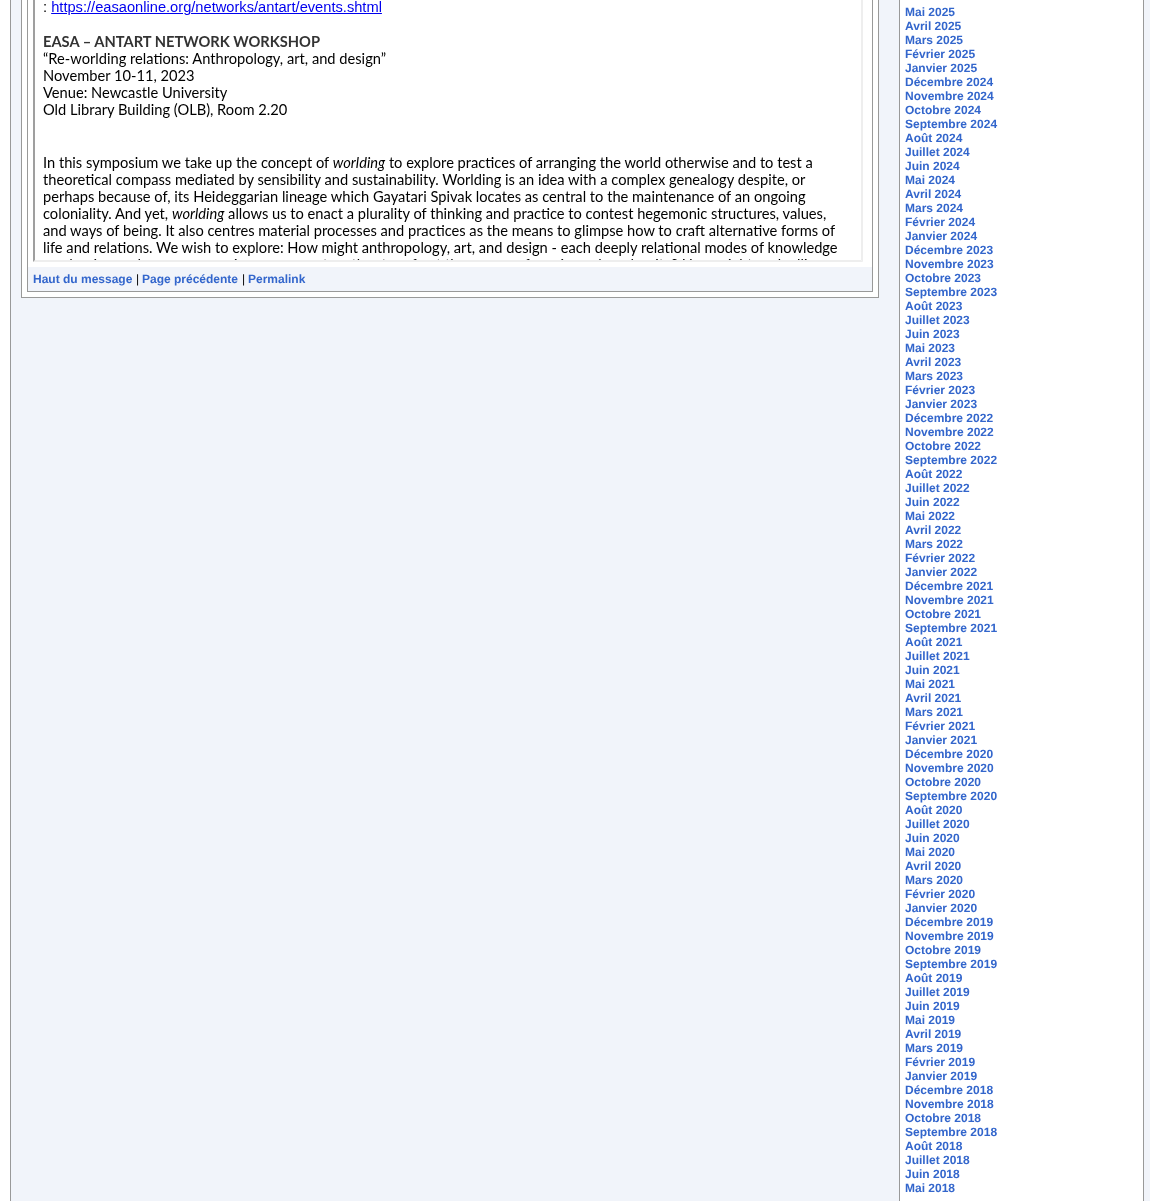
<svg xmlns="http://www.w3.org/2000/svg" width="1150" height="1201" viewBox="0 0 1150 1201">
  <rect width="100%" height="100%" fill="rgb(255,255,255)"/>
  <rect x="10.5" y="-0.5" width="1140" height="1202" fill="none" stroke="rgb(153,153,153)"/>
  <rect x="11" y="0" width="1139" height="1201" fill="rgb(241,244,250)"/>
  <rect x="21.5" y="-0.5" width="857" height="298" fill="none" stroke="rgb(153,153,153)"/>
  <rect x="22" y="0" width="856" height="297" fill="rgb(255,255,255)"/>
  <rect x="27.5" y="-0.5" width="845" height="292" fill="none" stroke="rgb(153,153,153)"/>
  <path d="M863-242V262L861 260V-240Z" fill="rgb(238,238,238)"/>
  <path d="M863 262H33L35 260H861Z" fill="rgb(238,238,238)"/>
  <path d="M33 262V-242L35-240V260Z" fill="rgb(159,159,159)"/>
  <image x="43" y="1" width="794" height="259" href="pic1.png"/>
  <rect x="28" y="267" width="844" height="24" fill="rgb(241,244,250)"/>
  <text x="33" y="283" font-family="Liberation Sans" font-size="12" font-weight="bold" fill="rgb(51,102,204)">Haut du message</text>
  <text x="136" y="283" font-family="Liberation Sans" font-size="12" fill="rgb(0,0,0)">|</text>
  <text x="142" y="283" font-family="Liberation Sans" font-size="12" font-weight="bold" fill="rgb(51,102,204)">Page précédente</text>
  <text x="242" y="283" font-family="Liberation Sans" font-size="12" fill="rgb(0,0,0)">|</text>
  <text x="248" y="283" font-family="Liberation Sans" font-size="12" font-weight="bold" fill="rgb(51,102,204)">Permalink</text>
  <rect x="900" y="0" width="243" height="1201" fill="rgb(255,255,255)"/>
  <rect x="1143" y="0" width="1" height="1201" fill="rgb(153,153,153)"/>
  <rect x="899" y="0" width="1" height="1201" fill="rgb(153,153,153)"/>
  <g font-family="Liberation Sans" font-size="12" font-weight="bold" fill="rgb(51,102,204)">
    <text>
      <tspan x="905" y="16">Mai 2025</tspan>
      <tspan x="905" y="30">Avril 2025</tspan>
      <tspan x="905" y="44">Mars 2025</tspan>
      <tspan x="905" y="58">Février 2025</tspan>
      <tspan x="905" y="72">Janvier 2025</tspan>
      <tspan x="905" y="86">Décembre 2024</tspan>
      <tspan x="905" y="100">Novembre 2024</tspan>
      <tspan x="905" y="114">Octobre 2024</tspan>
      <tspan x="905" y="128">Septembre 2024</tspan>
      <tspan x="905" y="142">Août 2024</tspan>
      <tspan x="905" y="156">Juillet 2024</tspan>
      <tspan x="905" y="170">Juin 2024</tspan>
      <tspan x="905" y="184">Mai 2024</tspan>
      <tspan x="905" y="198">Avril 2024</tspan>
      <tspan x="905" y="212">Mars 2024</tspan>
      <tspan x="905" y="226">Février 2024</tspan>
      <tspan x="905" y="240">Janvier 2024</tspan>
      <tspan x="905" y="254">Décembre 2023</tspan>
      <tspan x="905" y="268">Novembre 2023</tspan>
      <tspan x="905" y="282">Octobre 2023</tspan>
      <tspan x="905" y="296">Septembre 2023</tspan>
      <tspan x="905" y="310">Août 2023</tspan>
      <tspan x="905" y="324">Juillet 2023</tspan>
      <tspan x="905" y="338">Juin 2023</tspan>
      <tspan x="905" y="352">Mai 2023</tspan>
      <tspan x="905" y="366">Avril 2023</tspan>
      <tspan x="905" y="380">Mars 2023</tspan>
      <tspan x="905" y="394">Février 2023</tspan>
      <tspan x="905" y="408">Janvier 2023</tspan>
      <tspan x="905" y="422">Décembre 2022</tspan>
      <tspan x="905" y="436">Novembre 2022</tspan>
      <tspan x="905" y="450">Octobre 2022</tspan>
      <tspan x="905" y="464">Septembre 2022</tspan>
      <tspan x="905" y="478">Août 2022</tspan>
      <tspan x="905" y="492">Juillet 2022</tspan>
      <tspan x="905" y="506">Juin 2022</tspan>
      <tspan x="905" y="520">Mai 2022</tspan>
      <tspan x="905" y="534">Avril 2022</tspan>
      <tspan x="905" y="548">Mars 2022</tspan>
      <tspan x="905" y="562">Février 2022</tspan>
      <tspan x="905" y="576">Janvier 2022</tspan>
      <tspan x="905" y="590">Décembre 2021</tspan>
      <tspan x="905" y="604">Novembre 2021</tspan>
      <tspan x="905" y="618">Octobre 2021</tspan>
      <tspan x="905" y="632">Septembre 2021</tspan>
      <tspan x="905" y="646">Août 2021</tspan>
      <tspan x="905" y="660">Juillet 2021</tspan>
      <tspan x="905" y="674">Juin 2021</tspan>
      <tspan x="905" y="688">Mai 2021</tspan>
      <tspan x="905" y="702">Avril 2021</tspan>
      <tspan x="905" y="716">Mars 2021</tspan>
      <tspan x="905" y="730">Février 2021</tspan>
      <tspan x="905" y="744">Janvier 2021</tspan>
      <tspan x="905" y="758">Décembre 2020</tspan>
      <tspan x="905" y="772">Novembre 2020</tspan>
      <tspan x="905" y="786">Octobre 2020</tspan>
      <tspan x="905" y="800">Septembre 2020</tspan>
      <tspan x="905" y="814">Août 2020</tspan>
      <tspan x="905" y="828">Juillet 2020</tspan>
      <tspan x="905" y="842">Juin 2020</tspan>
      <tspan x="905" y="856">Mai 2020</tspan>
      <tspan x="905" y="870">Avril 2020</tspan>
      <tspan x="905" y="884">Mars 2020</tspan>
      <tspan x="905" y="898">Février 2020</tspan>
      <tspan x="905" y="912">Janvier 2020</tspan>
      <tspan x="905" y="926">Décembre 2019</tspan>
      <tspan x="905" y="940">Novembre 2019</tspan>
      <tspan x="905" y="954">Octobre 2019</tspan>
      <tspan x="905" y="968">Septembre 2019</tspan>
      <tspan x="905" y="982">Août 2019</tspan>
      <tspan x="905" y="996">Juillet 2019</tspan>
      <tspan x="905" y="1010">Juin 2019</tspan>
      <tspan x="905" y="1024">Mai 2019</tspan>
      <tspan x="905" y="1038">Avril 2019</tspan>
      <tspan x="905" y="1052">Mars 2019</tspan>
      <tspan x="905" y="1066">Février 2019</tspan>
      <tspan x="905" y="1080">Janvier 2019</tspan>
      <tspan x="905" y="1094">Décembre 2018</tspan>
      <tspan x="905" y="1108">Novembre 2018</tspan>
      <tspan x="905" y="1122">Octobre 2018</tspan>
      <tspan x="905" y="1136">Septembre 2018</tspan>
      <tspan x="905" y="1150">Août 2018</tspan>
      <tspan x="905" y="1164">Juillet 2018</tspan>
      <tspan x="905" y="1178">Juin 2018</tspan>
      <tspan x="905" y="1192">Mai 2018</tspan>
    </text>
  </g>
</svg>
